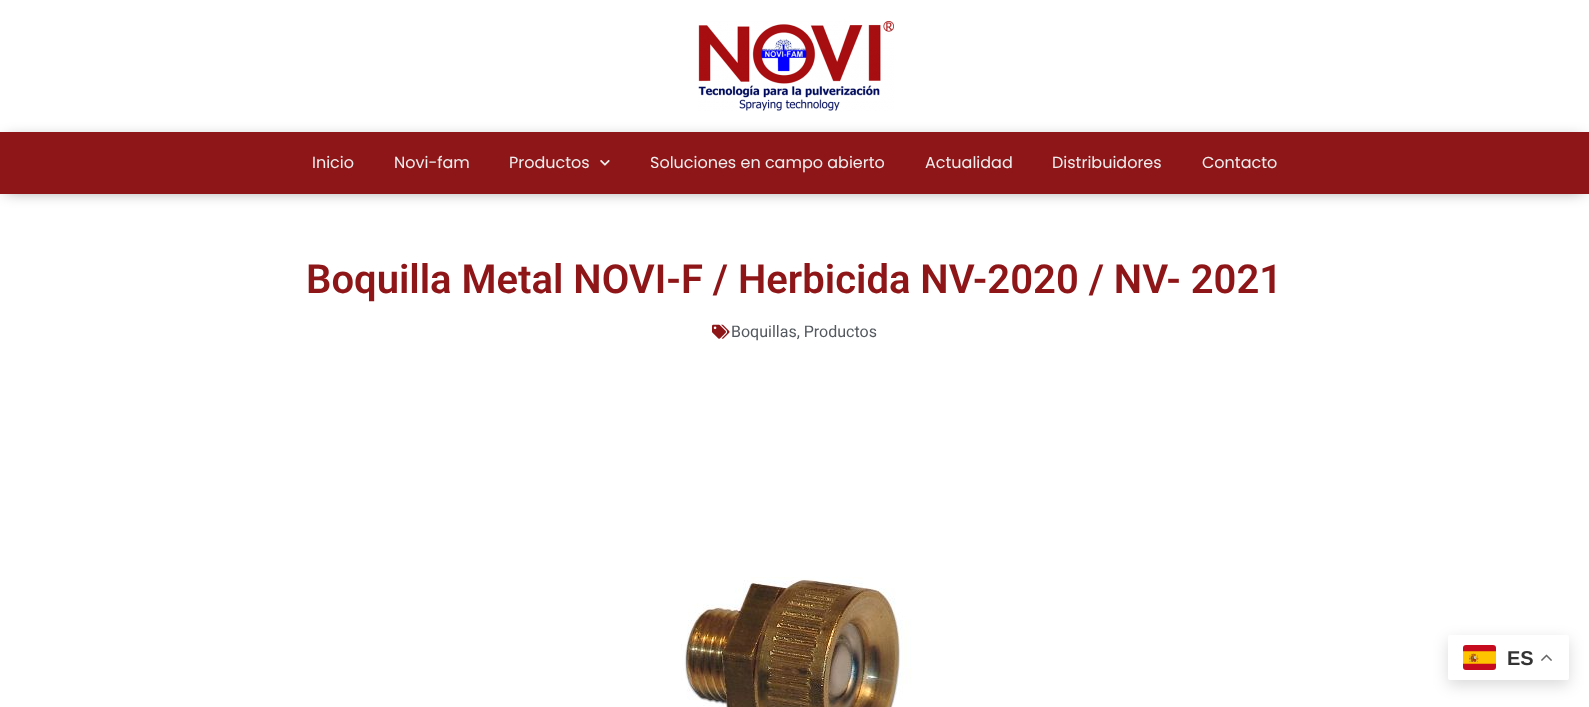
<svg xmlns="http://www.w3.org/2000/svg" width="1589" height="707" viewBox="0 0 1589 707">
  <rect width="100%" height="100%" fill="rgb(255,255,255)"/>
  <image x="698" y="21" width="196" height="90" href="pic1.png"/>
  <rect x="6" y="140" width="1577" height="50" fill="rgba(0,0,0,0.5)" filter="blur(8px)"/>
  <rect x="0" y="132" width="1589" height="62" fill="rgb(142,22,24)"/>
  <g font-family="Poppins" font-size="16" fill="rgb(238,238,238)">
    <text x="312" y="168">Inicio</text>
    <text x="394" y="168">Novi-fam</text>
    <text x="509" y="168">Productos</text>
  </g>
  <image x="600" y="160" width="10" height="6" href="pic2.png"/>
  <g font-family="Poppins" font-size="16" fill="rgb(238,238,238)">
    <text x="650" y="168">Soluciones en campo abierto</text>
    <text x="925" y="168">Actualidad</text>
    <text x="1052" y="168">Distribuidores</text>
    <text x="1202" y="168">Contacto</text>
  </g>
  <text x="306" y="293" font-family="Roboto" font-size="40" font-weight="600" fill="rgb(142,22,24)">Boquilla Metal NOVI-F / Herbicida NV-2020 / NV- 2021</text>
  <image x="712" y="324" width="18" height="15" href="pic3.png"/>
  <text x="731" y="337" font-family="Roboto" font-size="16" fill="rgb(84,89,95)">Boquillas, Productos</text>
  <image x="681" y="577" width="230" height="130" href="pic4.png"/>
  <rect x="1448" y="640" width="121" height="45" rx="2" fill="rgba(0,0,0,0.15)" filter="blur(7.5px)"/>
  <rect x="1448" y="635" width="121" height="45" rx="2" fill="rgb(255,255,255)"/>
  <image x="1463" y="645" width="33" height="25" href="pic5.png"/>
  <text x="1507" y="665" font-family="Liberation Sans" font-size="20" font-weight="bold" fill="rgb(51,51,51)">ES</text>
  <image x="1541" y="654" width="11" height="7" href="pic6.png"/>
</svg>
